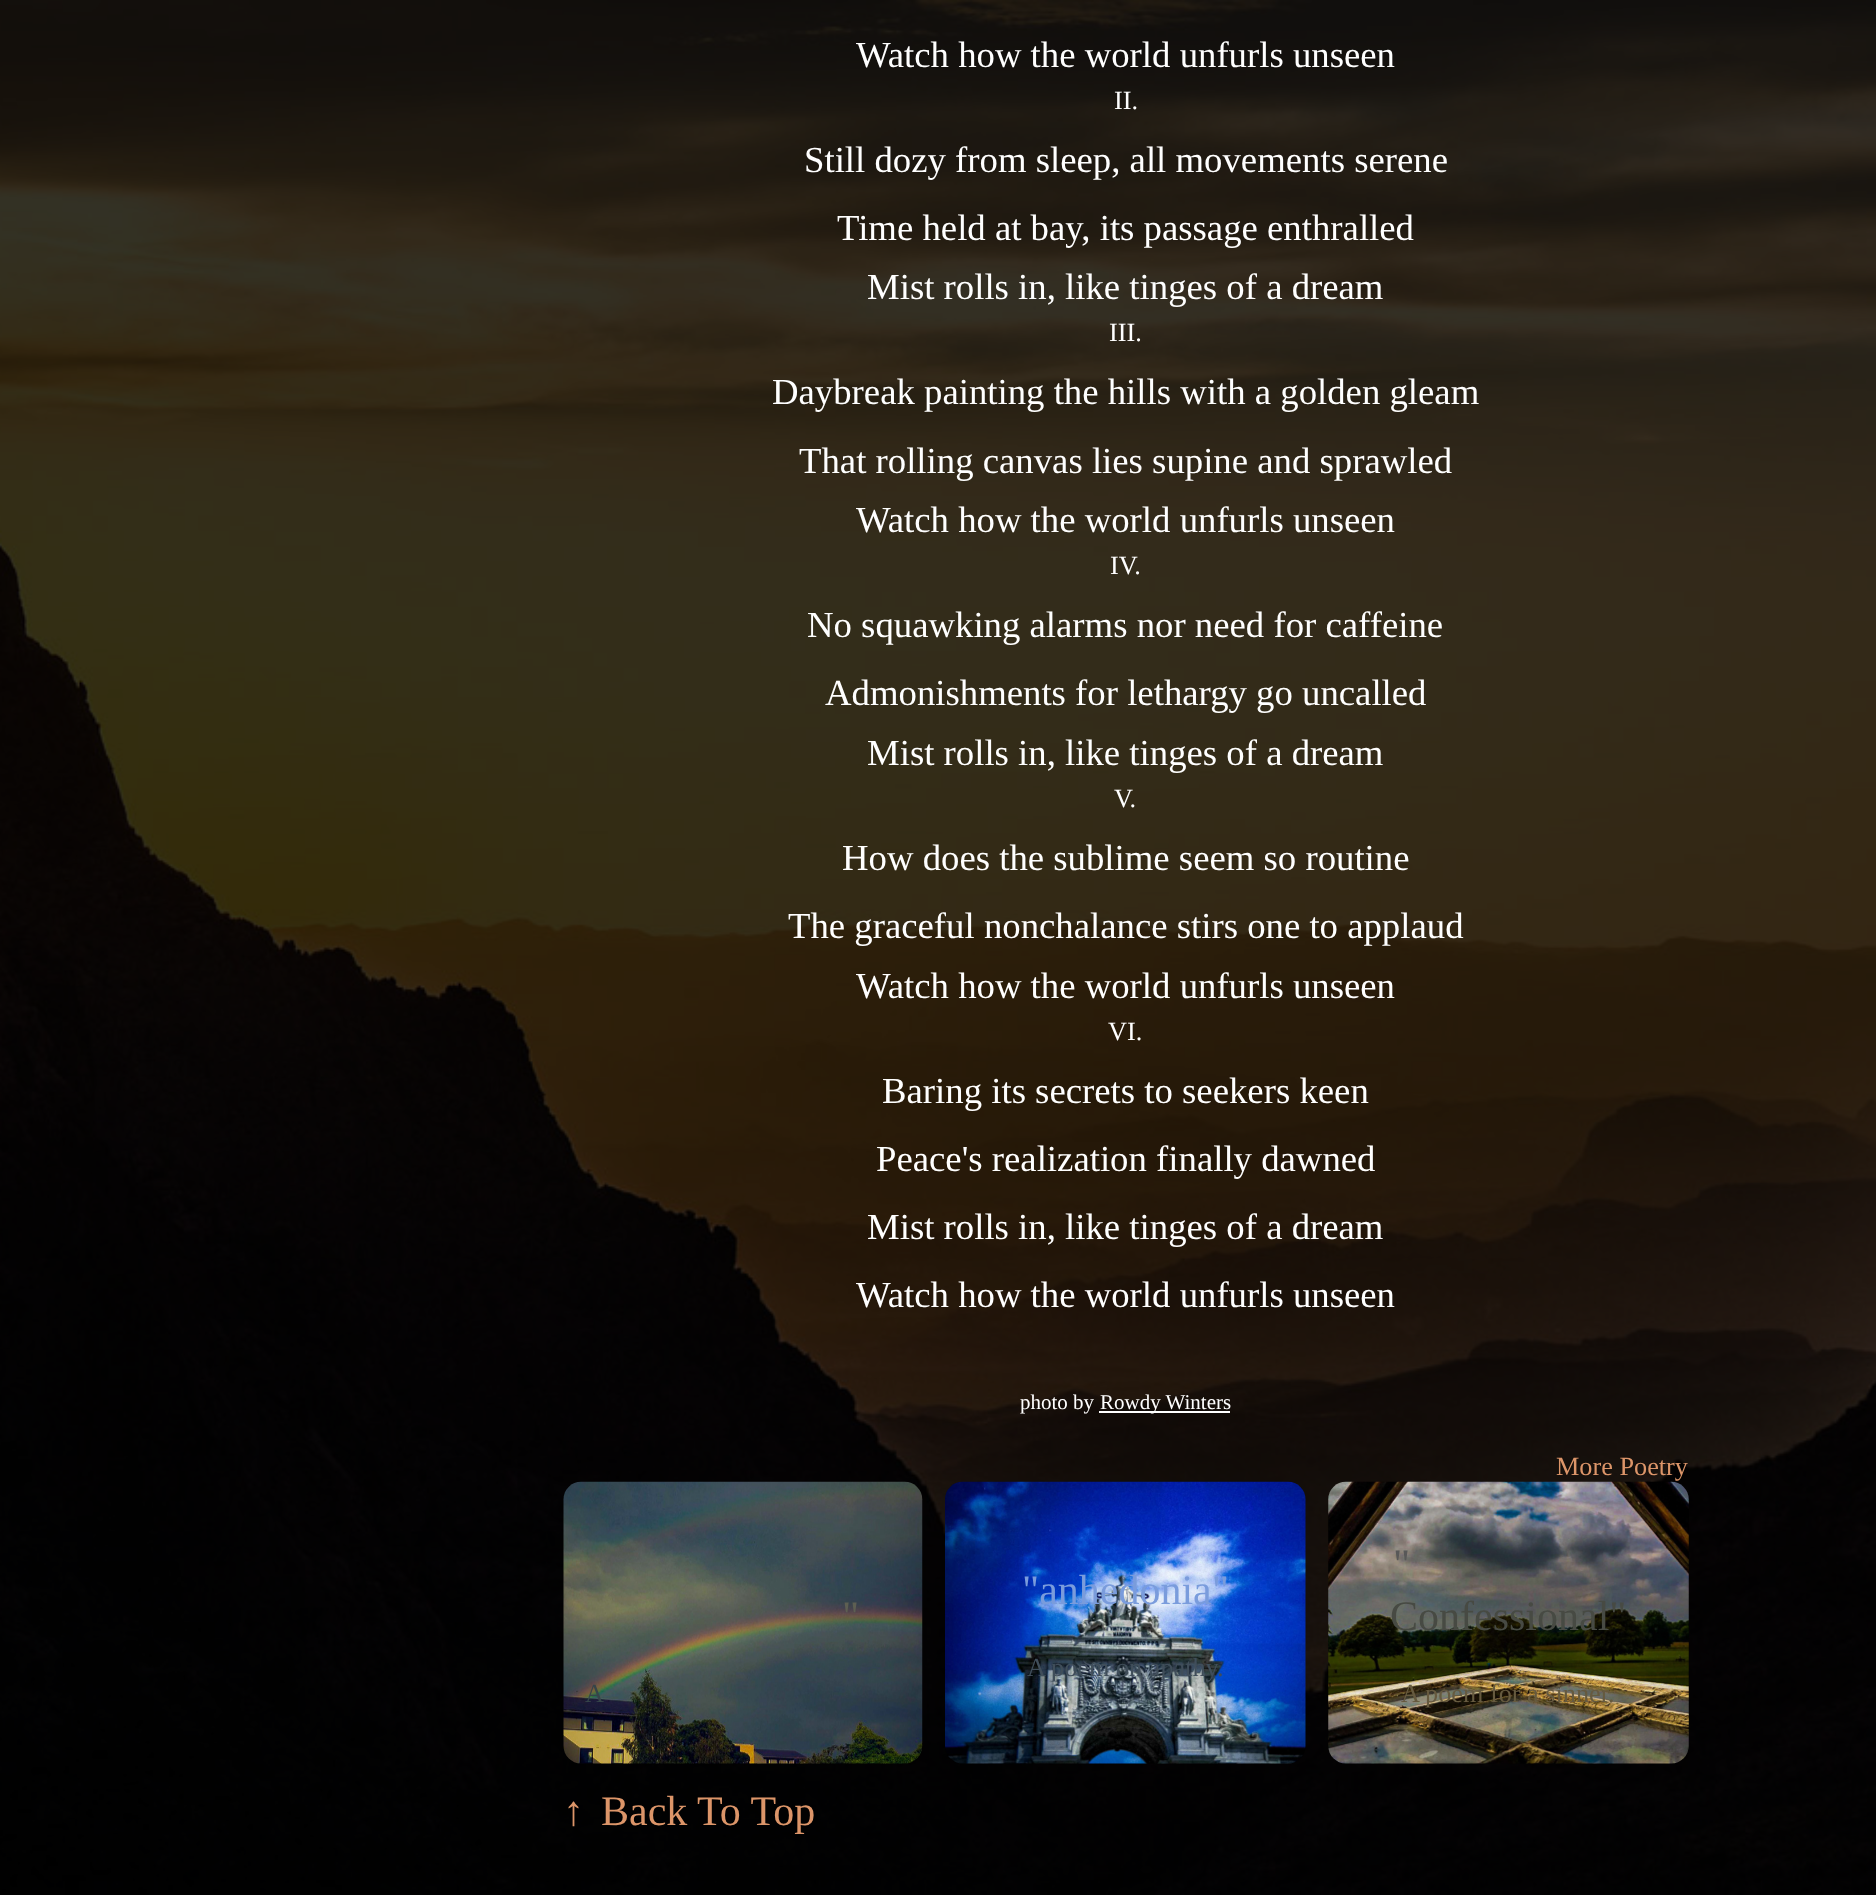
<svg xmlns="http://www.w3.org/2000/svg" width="1876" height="1895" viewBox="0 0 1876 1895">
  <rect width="100%" height="100%" fill="rgb(255,255,255)"/>
  <image x="0" y="0" width="1876" height="1895" href="pic1.png"/>
  <text x="856" y="67" font-family="Liberation Serif" font-size="36.75" fill="rgb(255,255,255)">Watch how the world unfurls unseen</text>
  <text x="1114" y="109" font-family="Liberation Serif" font-size="26.25" fill="rgb(255,255,255)">II.</text>
  <g font-family="Liberation Serif" font-size="36.75" fill="rgb(255,255,255)">
    <text x="804" y="172">Still dozy from sleep, all movements serene</text>
    <text x="837" y="240">Time held at bay, its passage enthralled</text>
    <text x="867" y="299">Mist rolls in, like tinges of a dream</text>
  </g>
  <text x="1109" y="341" font-family="Liberation Serif" font-size="26.25" fill="rgb(255,255,255)">III.</text>
  <g font-family="Liberation Serif" font-size="36.75" fill="rgb(255,255,255)">
    <text x="772" y="404">Daybreak painting the hills with a golden gleam</text>
    <text x="799" y="473">That rolling canvas lies supine and sprawled</text>
    <text x="856" y="532">Watch how the world unfurls unseen</text>
  </g>
  <text x="1110" y="574" font-family="Liberation Serif" font-size="26.25" fill="rgb(255,255,255)">IV.</text>
  <g font-family="Liberation Serif" font-size="36.75" fill="rgb(255,255,255)">
    <text x="807" y="637">No squawking alarms nor need for caffeine</text>
    <text x="825" y="705">Admonishments for lethargy go uncalled</text>
    <text x="867" y="765">Mist rolls in, like tinges of a dream</text>
  </g>
  <text x="1114" y="807" font-family="Liberation Serif" font-size="26.25" fill="rgb(255,255,255)">V.</text>
  <g font-family="Liberation Serif" font-size="36.75" fill="rgb(255,255,255)">
    <text x="842" y="870">How does the sublime seem so routine</text>
    <text x="788" y="938">The graceful nonchalance stirs one to applaud</text>
    <text x="856" y="998">Watch how the world unfurls unseen</text>
  </g>
  <text x="1108" y="1040" font-family="Liberation Serif" font-size="26.25" fill="rgb(255,255,255)">VI.</text>
  <g font-family="Liberation Serif" font-size="36.75" fill="rgb(255,255,255)">
    <text x="882" y="1103">Baring its secrets to seekers keen</text>
    <text x="876" y="1171">Peace's realization finally dawned</text>
    <text x="867" y="1239">Mist rolls in, like tinges of a dream</text>
    <text x="856" y="1307">Watch how the world unfurls unseen</text>
  </g>
  <text x="1020" y="1409" font-family="Liberation Serif" font-size="21" fill="rgb(255,255,255)">photo by</text>
  <rect x="1099" y="1411" width="131" height="2" fill="rgb(255,255,255)"/>
  <text x="1100" y="1409" font-family="Liberation Serif" font-size="21" fill="rgb(255,255,255)">Rowdy Winters</text>
  <text x="1556" y="1475" font-family="Liberation Serif" font-size="26.25" fill="rgb(220,149,105)">More Poetry</text>
  <image x="563" y="1481" width="360" height="283" href="pic2.png"/>
  <text x="842" y="1630" font-family="Liberation Serif" font-size="42" fill="rgb(93,95,82)">"</text>
  <text x="585" y="1702" font-family="Liberation Serif" font-size="26.25" fill="rgb(54,68,73)">A</text>
  <image x="945" y="1481" width="361" height="283" href="pic3.png"/>
  <text x="1022" y="1604" font-family="Liberation Serif" font-size="42" fill="rgb(122,156,220)">"anhedonia"</text>
  <text x="1027" y="1676" font-family="Liberation Serif" font-size="26.25" fill="rgb(64,78,90)">A poem on apathy.</text>
  <image x="1328" y="1481" width="361" height="283" href="pic4.png"/>
  <text x="1393" y="1578" font-family="Liberation Serif" font-size="42" fill="rgb(88,88,88)">"</text>
  <text x="1390" y="1630" font-family="Liberation Serif" font-size="42" fill="rgb(71,74,67)">Confessional"</text>
  <text x="1401" y="1702" font-family="Liberation Serif" font-size="26.25" fill="rgb(102,90,63)">A poem for a sinner.</text>
  <g font-family="Liberation Serif" font-size="42" fill="rgb(220,149,105)">
    <text x="563" y="1825">↑</text>
    <text x="601" y="1825">Back To Top</text>
  </g>
</svg>
